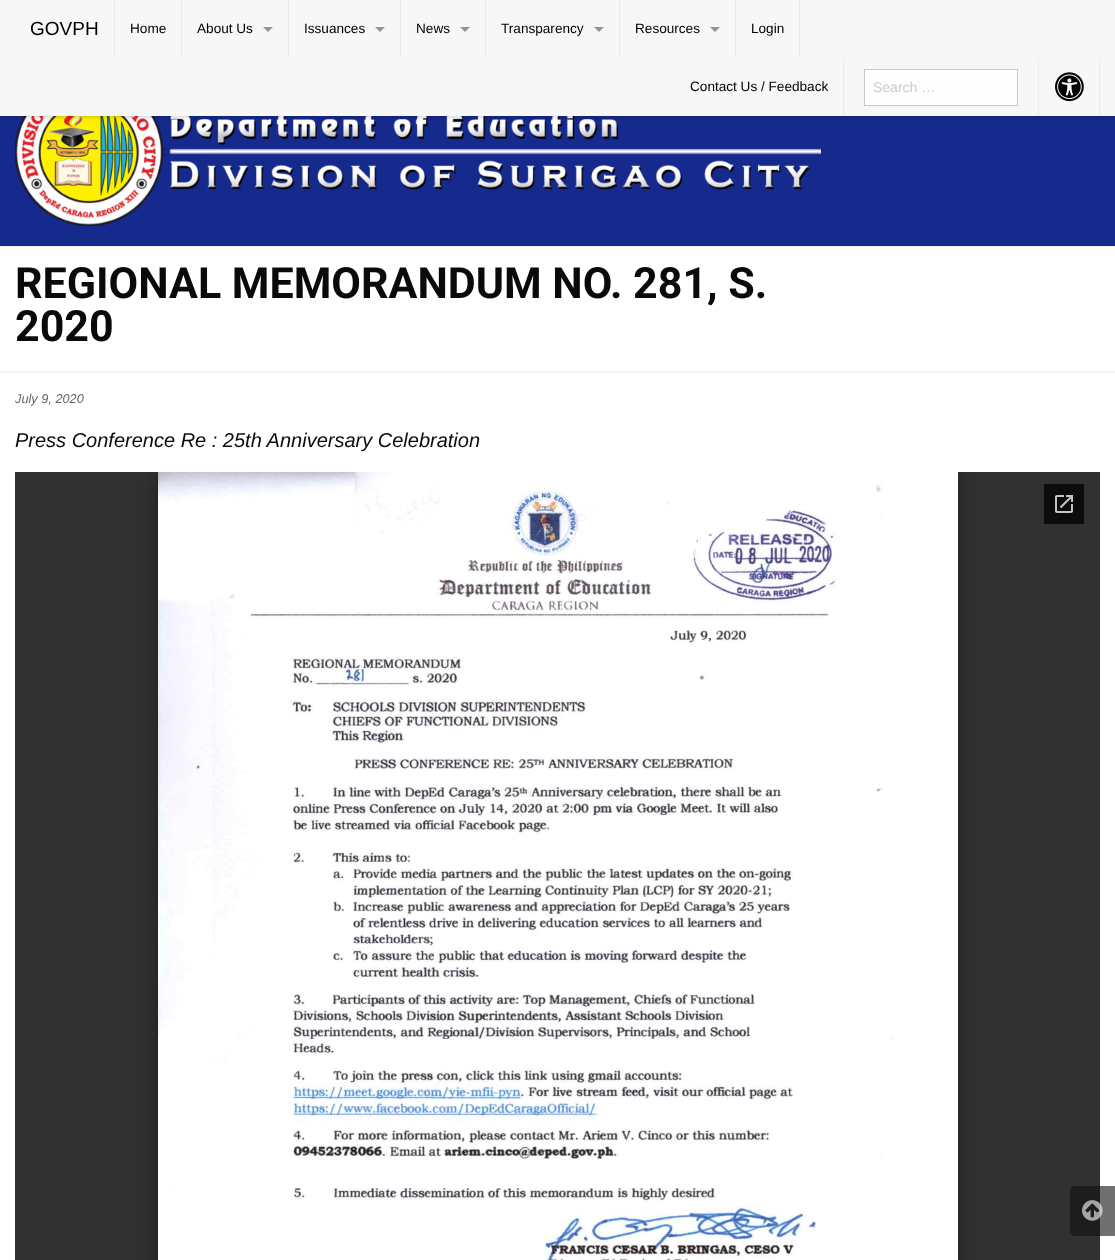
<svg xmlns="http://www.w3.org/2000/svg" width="1115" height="1260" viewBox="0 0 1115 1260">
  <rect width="100%" height="100%" fill="rgb(255,255,255)"/>
  <rect x="0" y="116" width="1115" height="130" fill="rgb(22,41,141)"/>
  <image x="15" y="116" width="806" height="110" href="pic2.png"/>
  <rect x="0" y="1" width="1115" height="116" fill="rgba(0,0,0,0.2)" filter="blur(2px)"/>
  <rect x="0" y="0" width="1115" height="116" fill="rgb(247,247,247)"/>
  <rect x="114" y="0" width="1" height="58" fill="rgb(235,235,235)"/>
  <text x="30" y="35" font-family="Liberation Sans" font-size="19" fill="rgb(0,0,0)">GOVPH</text>
  <rect x="181" y="0" width="1" height="58" fill="rgb(235,235,235)"/>
  <text x="130" y="33" font-family="Liberation Sans" font-size="13.6" fill="rgb(0,0,0)">Home</text>
  <rect x="288" y="0" width="1" height="58" fill="rgb(235,235,235)"/>
  <text x="197" y="33" font-family="Liberation Sans" font-size="13.6" fill="rgb(0,0,0)">About Us</text>
  <path d="M263 27H273L268 32Z" fill="rgb(148,148,148)"/>
  <rect x="400" y="0" width="1" height="58" fill="rgb(235,235,235)"/>
  <text x="304" y="33" font-family="Liberation Sans" font-size="13.6" fill="rgb(0,0,0)">Issuances</text>
  <path d="M375 27H385L380 32Z" fill="rgb(148,148,148)"/>
  <rect x="485" y="0" width="1" height="58" fill="rgb(235,235,235)"/>
  <text x="416" y="33" font-family="Liberation Sans" font-size="13.6" fill="rgb(0,0,0)">News</text>
  <path d="M460 27H470L465 32Z" fill="rgb(148,148,148)"/>
  <rect x="619" y="0" width="1" height="58" fill="rgb(235,235,235)"/>
  <text x="501" y="33" font-family="Liberation Sans" font-size="13.6" fill="rgb(0,0,0)">Transparency</text>
  <path d="M594 27H604L599 32Z" fill="rgb(148,148,148)"/>
  <rect x="735" y="0" width="1" height="58" fill="rgb(235,235,235)"/>
  <text x="635" y="33" font-family="Liberation Sans" font-size="13.6" fill="rgb(0,0,0)">Resources</text>
  <path d="M710 27H720L715 32Z" fill="rgb(148,148,148)"/>
  <rect x="799" y="0" width="1" height="58" fill="rgb(235,235,235)"/>
  <text x="751" y="33" font-family="Liberation Sans" font-size="13.6" fill="rgb(0,0,0)">Login</text>
  <rect x="843" y="58" width="1" height="58" fill="rgb(235,235,235)"/>
  <text x="690" y="91" font-family="Liberation Sans" font-size="13.6" fill="rgb(0,0,0)">Contact Us / Feedback</text>
  <rect x="1038" y="58" width="1" height="58" fill="rgb(235,235,235)"/>
  <rect x="864.5" y="69.5" width="153" height="36" fill="rgb(254,254,254)" stroke="rgb(202,202,202)"/>
  <text x="873" y="92" font-family="Liberation Sans" font-size="14" fill="rgb(202,202,202)">Search …</text>
  <rect x="1099" y="58" width="1" height="58" fill="rgb(235,235,235)"/>
  <image x="1055" y="72" width="29" height="30" href="pic1.png"/>
  <rect x="0" y="246" width="1115" height="1" fill="rgb(242,242,242)"/>
  <rect x="0" y="371" width="1115" height="1" fill="rgb(242,242,242)"/>
  <g font-family="Roboto" font-size="43" font-weight="bold" fill="rgb(10,10,10)">
    <text>
      <tspan x="15" y="298">REGIONAL MEMORANDUM NO. 281, S.</tspan>
      <tspan x="15" y="341">2020</tspan>
    </text>
  </g>
  <rect x="0" y="372" width="1115" height="1" fill="rgb(247,247,247)"/>
  <text x="15" y="403" font-family="Liberation Sans" font-size="12.75" font-style="italic" fill="rgb(102,102,102)">July 9, 2020</text>
  <text x="15" y="447" font-family="Liberation Sans" font-size="20" font-style="italic" fill="rgb(10,10,10)">Press Conference Re : 25th Anniversary Celebration</text>
  <image x="15" y="472" width="1085" height="788" href="pic3.png"/>
  <path d="M1075 1186H1115V1236H1075C1072 1236 1070 1234 1070 1231V1191C1070 1188 1072 1186 1075 1186Z" fill="rgba(17,17,17,0.6)"/>
  <image x="1082" y="1200" width="21" height="21" href="pic4.png"/>
</svg>
